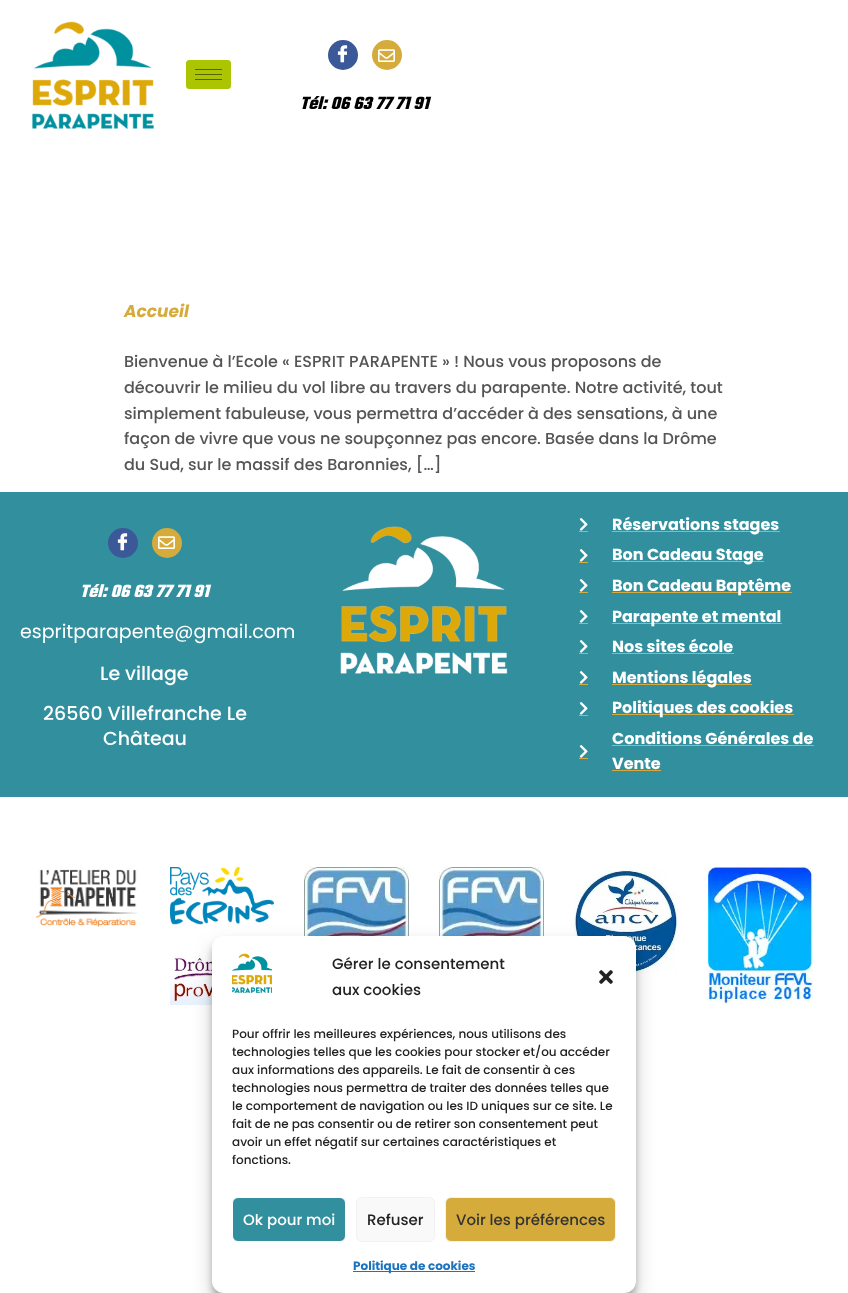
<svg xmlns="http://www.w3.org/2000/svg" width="848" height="1293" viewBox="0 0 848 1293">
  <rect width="100%" height="100%" fill="rgb(255,255,255)"/>
  <image x="31" y="21" width="124" height="108" href="pic1.png"/>
  <rect x="186.5" y="60.5" width="44" height="28" rx="2.5" fill="rgb(171,197,2)" stroke="rgb(171,197,2)"/>
  <rect x="195" y="69" width="27" height="1" fill="rgb(86,99,1)"/>
  <rect x="195" y="74" width="27" height="1" fill="rgb(86,99,1)"/>
  <rect x="195" y="79" width="27" height="1" fill="rgb(86,99,1)"/>
  <circle cx="343" cy="55" r="15" fill="rgb(59,89,152)"/>
  <image x="337" y="45" width="11" height="18" href="pic2.png"/>
  <circle cx="387" cy="55" r="15" fill="rgb(213,171,59)"/>
  <image x="378" y="49" width="17" height="13" href="pic3.png"/>
  <text x="300" y="109" font-family="Teko" font-size="19" font-weight="bold" font-style="italic" fill="rgb(1,1,1)">Tél: 06 63 77 71 91</text>
  <text x="124" y="317" font-family="Poppins" font-size="17" font-weight="bold" font-style="italic" fill="rgb(213,171,59)">Accueil</text>
  <g font-family="Poppins" font-size="16" font-weight="500" fill="rgb(85,85,85)">
    <text>
      <tspan x="124" y="367">Bienvenue à l’Ecole « ESPRIT PARAPENTE » ! Nous vous proposons de</tspan>
      <tspan x="124" y="393">découvrir le milieu du vol libre au travers du parapente. Notre activité, tout</tspan>
      <tspan x="124" y="419">simplement fabuleuse, vous permettra d’accéder à des sensations, à une</tspan>
      <tspan x="124" y="444">façon de vivre que vous ne soupçonnez pas encore. Basée dans la Drôme</tspan>
      <tspan x="124" y="470">du Sud, sur le massif des Baronnies, […]</tspan>
    </text>
  </g>
  <rect x="0" y="492" width="848" height="305" fill="rgb(49,143,158)"/>
  <circle cx="123" cy="543" r="15" fill="rgb(59,89,152)"/>
  <image x="117" y="533" width="11" height="18" href="pic2.png"/>
  <circle cx="167" cy="543" r="15" fill="rgb(213,171,59)"/>
  <image x="158" y="536" width="17" height="13" href="pic3.png"/>
  <text x="80" y="597" font-family="Teko" font-size="19" font-weight="bold" font-style="italic" fill="rgb(255,255,255)">Tél: 06 63 77 71 91</text>
  <text x="20" y="638" font-family="Poppins" font-size="19" fill="rgb(255,255,255)">espritparapente@gmail.com</text>
  <g font-family="Poppins" font-size="19" font-weight="500" fill="rgb(255,255,255)">
    <text x="100" y="680">Le village</text>
    <text x="43" y="720">26560 Villefranche Le</text>
    <text x="103" y="745">Château</text>
  </g>
  <image x="340" y="526" width="168" height="148" href="pic4.png"/>
  <image x="579" y="518" width="9" height="13" href="pic5.png"/>
  <rect x="579" y="531" width="9" height="1" fill="rgb(213,171,59)"/>
  <rect x="612" y="531" width="168" height="1" fill="rgb(213,171,59)"/>
  <text x="612" y="530" font-family="Poppins" font-size="16" font-weight="bold" fill="rgb(255,255,255)">Réservations stages</text>
  <image x="579" y="549" width="9" height="13" href="pic5.png"/>
  <rect x="579" y="562" width="9" height="1" fill="rgb(213,171,59)"/>
  <rect x="612" y="561" width="152" height="1" fill="rgb(213,171,59)"/>
  <text x="612" y="560" font-family="Poppins" font-size="16" font-weight="bold" fill="rgb(255,255,255)">Bon Cadeau Stage</text>
  <image x="579" y="579" width="9" height="13" href="pic5.png"/>
  <rect x="579" y="592" width="9" height="1" fill="rgb(213,171,59)"/>
  <rect x="612" y="592" width="180" height="1" fill="rgb(213,171,59)"/>
  <text x="612" y="591" font-family="Poppins" font-size="16" font-weight="bold" fill="rgb(255,255,255)">Bon Cadeau Baptême</text>
  <image x="579" y="610" width="9" height="13" href="pic5.png"/>
  <rect x="579" y="623" width="9" height="1" fill="rgb(213,171,59)"/>
  <rect x="612" y="623" width="170" height="1" fill="rgb(213,171,59)"/>
  <text x="612" y="622" font-family="Poppins" font-size="16" font-weight="bold" fill="rgb(255,255,255)">Parapente et mental</text>
  <image x="579" y="640" width="9" height="13" href="pic5.png"/>
  <rect x="579" y="653" width="9" height="1" fill="rgb(213,171,59)"/>
  <text x="612" y="652" font-family="Poppins" font-size="16" font-weight="bold" fill="rgb(255,255,255)">Nos sites école</text>
  <rect x="612" y="653" width="122" height="1" fill="rgb(213,171,59)"/>
  <image x="579" y="671" width="9" height="13" href="pic5.png"/>
  <rect x="579" y="684" width="9" height="1" fill="rgb(213,171,59)"/>
  <rect x="612" y="684" width="140" height="1" fill="rgb(213,171,59)"/>
  <text x="612" y="683" font-family="Poppins" font-size="16" font-weight="bold" fill="rgb(255,255,255)">Mentions légales</text>
  <image x="579" y="702" width="9" height="13" href="pic5.png"/>
  <rect x="579" y="715" width="9" height="1" fill="rgb(213,171,59)"/>
  <rect x="612" y="714" width="182" height="1" fill="rgb(213,171,59)"/>
  <text x="612" y="713" font-family="Poppins" font-size="16" font-weight="bold" fill="rgb(255,255,255)">Politiques des cookies</text>
  <image x="579" y="745" width="9" height="13" href="pic5.png"/>
  <rect x="579" y="758" width="9" height="1" fill="rgb(213,171,59)"/>
  <text x="612" y="744" font-family="Poppins" font-size="16" font-weight="bold" fill="rgb(255,255,255)">Conditions Générales de</text>
  <rect x="612" y="745" width="202" height="1" fill="rgb(213,171,59)"/>
  <text x="612" y="769" font-family="Poppins" font-size="16" font-weight="bold" fill="rgb(255,255,255)">Vente</text>
  <rect x="612" y="770" width="49" height="1" fill="rgb(213,171,59)"/>
  <image x="36" y="869" width="102" height="58" href="pic6.png"/>
  <image x="170" y="867" width="104" height="58" href="pic7.png"/>
  <image x="170" y="945" width="43" height="60" href="pic8.png"/>
  <image x="304" y="867" width="105" height="69" href="pic9.png"/>
  <image x="439" y="867" width="105" height="69" href="pic10.png"/>
  <image x="574" y="867" width="104" height="106" href="pic11.png"/>
  <image x="708" y="867" width="105" height="138" href="pic12.png"/>
  <rect x="212" y="942" width="424" height="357" rx="12" fill="rgba(0,0,0,0.23)" filter="blur(3px)"/>
  <rect x="212" y="946" width="424" height="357" rx="12" fill="rgba(0,0,0,0.19)" filter="blur(10px)"/>
  <rect x="212" y="936" width="424" height="357" rx="12" fill="rgb(255,255,255)"/>
  <image x="232" y="953" width="40" height="40" href="pic13.png"/>
  <g font-family="Poppins" font-size="15" font-weight="500" fill="rgb(34,34,34)">
    <text>
      <tspan x="332" y="969">Gérer le consentement</tspan>
      <tspan x="332" y="995">aux cookies</tspan>
    </text>
  </g>
  <image x="599" y="970" width="14" height="14" href="pic14.png"/>
  <g font-family="Poppins" font-size="12" font-weight="500" fill="rgb(34,34,34)">
    <text>
      <tspan x="232" y="1038">Pour offrir les meilleures expériences, nous utilisons des</tspan>
      <tspan x="232" y="1056">technologies telles que les cookies pour stocker et/ou accéder</tspan>
      <tspan x="232" y="1074">aux informations des appareils. Le fait de consentir à ces</tspan>
      <tspan x="232" y="1092">technologies nous permettra de traiter des données telles que</tspan>
      <tspan x="232" y="1110">le comportement de navigation ou les ID uniques sur ce site. Le</tspan>
      <tspan x="232" y="1128">fait de ne pas consentir ou de retirer son consentement peut</tspan>
      <tspan x="232" y="1146">avoir un effet négatif sur certaines caractéristiques et</tspan>
      <tspan x="232" y="1164">fonctions.</tspan>
    </text>
  </g>
  <rect x="232.5" y="1197.5" width="113" height="44" rx="5.5" fill="rgb(49,143,158)" stroke="rgb(255,255,255)"/>
  <text x="243" y="1225" font-family="Poppins" font-size="15" font-weight="500" fill="rgb(255,255,255)">Ok pour moi</text>
  <rect x="356.5" y="1197.5" width="78" height="44" rx="5.5" fill="rgb(249,249,249)" stroke="rgb(242,242,242)"/>
  <text x="367" y="1225" font-family="Poppins" font-size="15" font-weight="500" fill="rgb(34,34,34)">Refuser</text>
  <rect x="445.5" y="1197.5" width="170" height="44" rx="5.5" fill="rgb(213,171,59)" stroke="rgb(242,242,242)"/>
  <text x="456" y="1225" font-family="Poppins" font-size="15" font-weight="500" fill="rgb(51,51,51)">Voir les préférences</text>
  <rect x="353" y="1271" width="122" height="1" fill="rgb(30,115,190)"/>
  <text x="353" y="1270" font-family="Poppins" font-size="12" font-weight="bold" fill="rgb(30,115,190)">Politique de cookies</text>
</svg>
